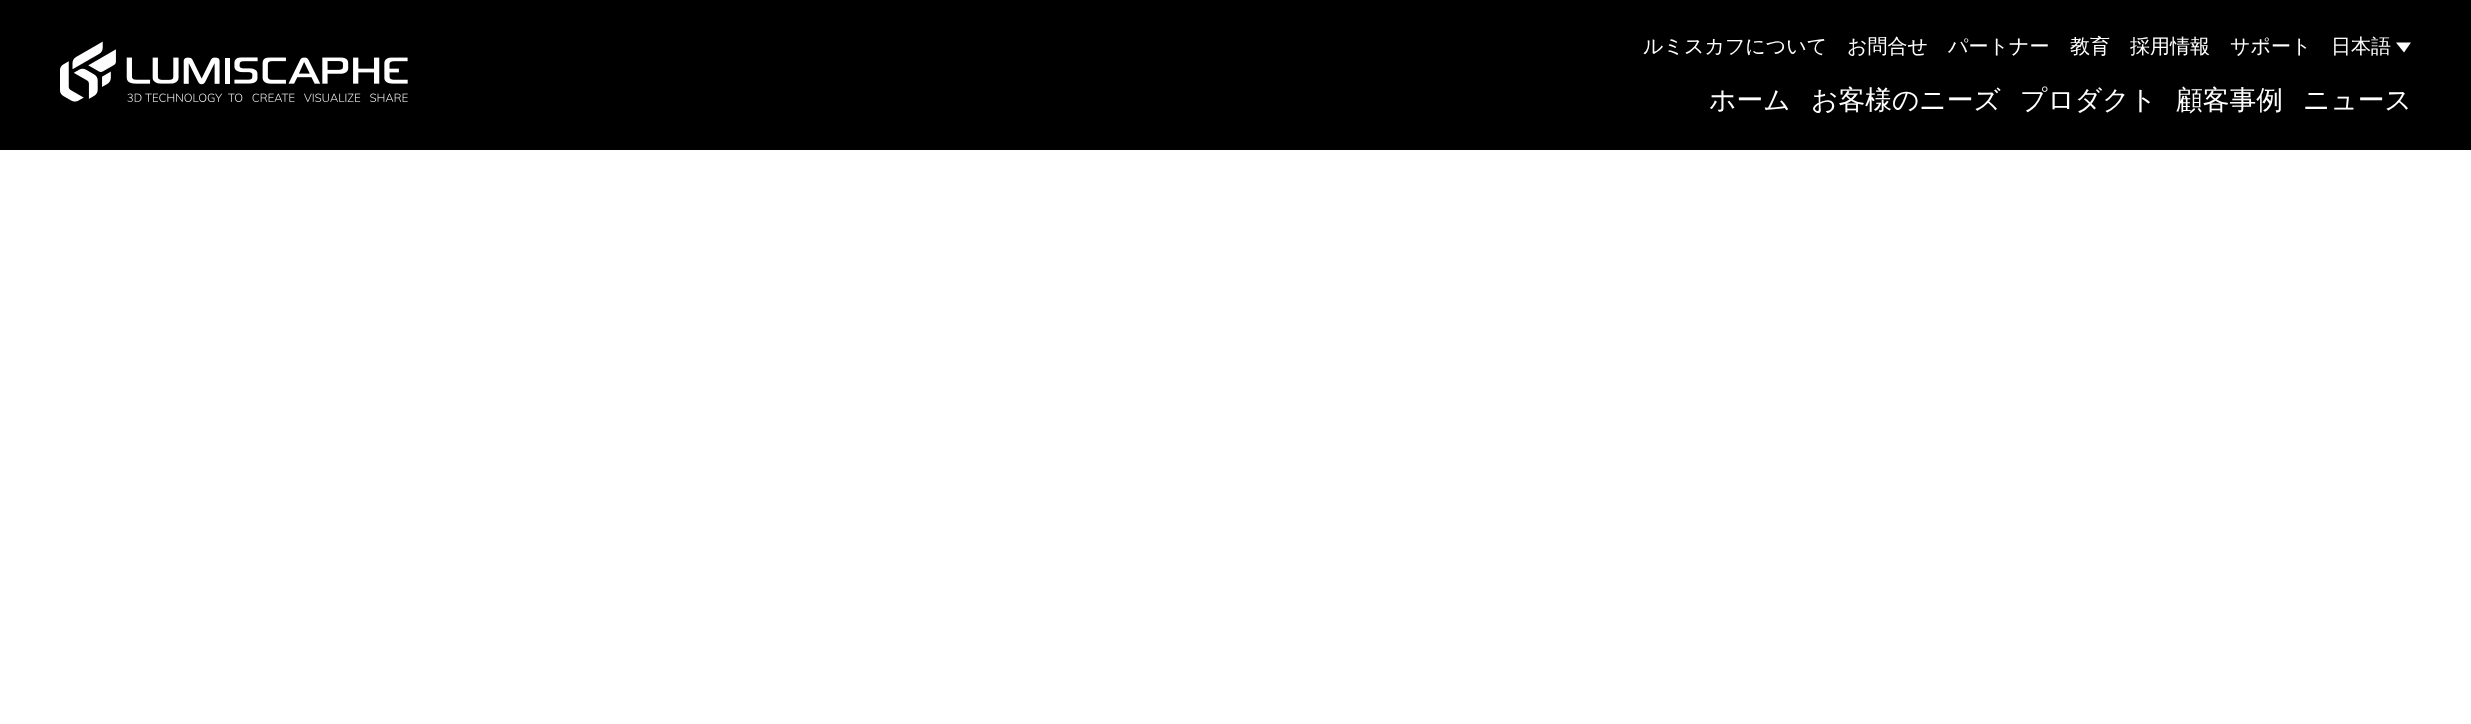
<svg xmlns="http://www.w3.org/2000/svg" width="2471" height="724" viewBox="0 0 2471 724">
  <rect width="100%" height="100%" fill="rgb(255,255,255)"/>
  <rect x="0" y="0" width="2471" height="150" fill="rgb(0,0,0)"/>
  <image x="60" y="41" width="348" height="61" href="pic1.png"/>
  <g font-family="WenQuanYi Zen Hei" font-size="20" font-weight="500" fill="rgb(255,255,255)">
    <text x="1643" y="53">ルミスカフについて</text>
    <text x="1847" y="53">お問合せ</text>
    <text x="1948" y="53">パートナー</text>
    <text x="2070" y="53">教育</text>
    <text x="2130" y="53">採用情報</text>
    <text x="2230" y="53">サポート</text>
    <text x="2331" y="53">日本語</text>
  </g>
  <path d="M2396 42.5H2411L2404 52.5Z" fill="rgb(255,255,255)"/>
  <g font-family="WenQuanYi Zen Hei" font-size="26.75" font-weight="500" fill="rgb(255,255,255)">
    <text x="1709" y="109">ホーム</text>
    <text x="1811" y="109">お客様のニーズ</text>
    <text x="2020" y="109">プロダクト</text>
    <text x="2176" y="109">顧客事例</text>
    <text x="2303" y="109">ニュース</text>
  </g>
</svg>
